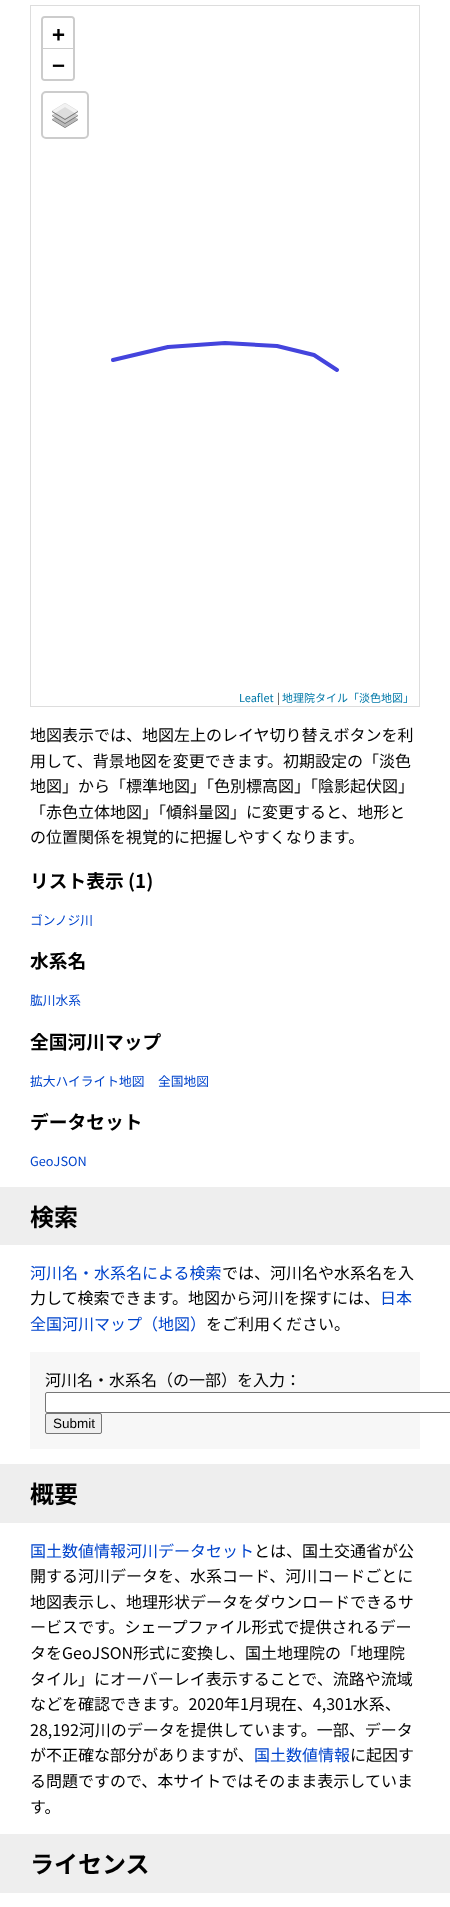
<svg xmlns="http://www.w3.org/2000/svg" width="450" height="1907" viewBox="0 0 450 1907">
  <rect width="100%" height="100%" fill="rgb(255,255,255)"/>
  <rect x="30.5" y="5.5" width="389" height="701" fill="none" stroke="rgb(221,221,221)"/>
  <rect x="42" y="17" width="32" height="63" rx="3" fill="none" stroke="rgb(204,204,204)" stroke-width="2"/>
  <path d="M45 18H71C72 18 73 19 73 20V49H43V20C43 19 44 18 45 18Z" fill="rgb(255,255,255)"/>
  <rect x="43" y="48" width="30" height="1" fill="rgb(204,204,204)"/>
  <text x="52" y="43" font-family="Noto Sans JP" font-size="22" font-weight="bold" fill="rgb(0,0,0)">+</text>
  <path d="M43 49H73V77C73 78 72 79 71 79H45C44 79 43 78 43 77Z" fill="rgb(255,255,255)"/>
  <text x="52" y="74" font-family="Noto Sans JP" font-size="22" font-weight="bold" fill="rgb(0,0,0)">−</text>
  <rect x="42" y="92" width="46" height="46" rx="4" fill="none" stroke="rgb(204,204,204)" stroke-width="2"/>
  <image x="52" y="103" width="26" height="25" href="pic1.png"/>
  <text x="239" y="702" font-family="Noto Sans JP" font-size="11" fill="rgb(0,120,168)">Leaflet</text>
  <text x="277" y="702" font-family="Noto Sans JP" font-size="11" fill="rgb(51,51,51)">|</text>
  <text x="282" y="702" font-family="Noto Sans JP" font-size="11" fill="rgb(0,120,168)">地理院タイル「淡色地図」</text>
  <path d="M337 370L314 355L277 346L225 343L168 347L113 360" fill="none" stroke="rgb(68,68,221)" stroke-width="4" stroke-linecap="round" stroke-linejoin="round"/>
  <g font-family="Noto Sans JP" font-size="16" fill="rgb(0,0,0)">
    <text>
      <tspan x="30" y="741">地図表示では、地図左上のレイヤ切り替えボタンを利</tspan>
      <tspan x="30" y="767">用して、背景地図を変更できます。初期設定の「淡色</tspan>
      <tspan x="30" y="792">地図」から「標準地図」「色別標高図」「陰影起伏図」</tspan>
      <tspan x="30" y="818">「赤色立体地図」「傾斜量図」に変更すると、地形と</tspan>
      <tspan x="30" y="843">の位置関係を視覚的に把握しやすくなります。</tspan>
    </text>
  </g>
  <text x="30" y="888" font-family="Noto Sans JP" font-size="18.75" font-weight="bold" fill="rgb(0,0,0)">リスト表示 (1)</text>
  <text x="30" y="925" font-family="Noto Sans JP" font-size="12.75" fill="rgb(0,68,204)">ゴンノジ川</text>
  <text x="30" y="968" font-family="Noto Sans JP" font-size="18.75" font-weight="bold" fill="rgb(0,0,0)">水系名</text>
  <text x="30" y="1005" font-family="Noto Sans JP" font-size="12.75" fill="rgb(0,68,204)">肱川水系</text>
  <text x="30" y="1049" font-family="Noto Sans JP" font-size="18.75" font-weight="bold" fill="rgb(0,0,0)">全国河川マップ</text>
  <g font-family="Noto Sans JP" font-size="12.75" fill="rgb(0,68,204)">
    <text x="30" y="1086">拡大ハイライト地図</text>
    <text x="158" y="1086">全国地図</text>
  </g>
  <text x="30" y="1129" font-family="Noto Sans JP" font-size="18.75" font-weight="bold" fill="rgb(0,0,0)">データセット</text>
  <text x="30" y="1166" font-family="Noto Sans JP" font-size="12.75" fill="rgb(0,68,204)">GeoJSON</text>
  <rect x="0" y="1187" width="450" height="58" fill="rgb(238,238,238)"/>
  <text x="30" y="1226" font-family="Noto Sans JP" font-size="24" font-weight="bold" fill="rgb(0,0,0)">検索</text>
  <text x="30" y="1279" font-family="Noto Sans JP" font-size="16" fill="rgb(0,68,204)">河川名・水系名による検索</text>
  <g font-family="Noto Sans JP" font-size="16" fill="rgb(0,0,0)">
    <text x="222" y="1279">では、河川名や水系名を入</text>
    <text x="30" y="1304">力して検索できます。地図から河川を探すには、</text>
  </g>
  <g font-family="Noto Sans JP" font-size="16" fill="rgb(0,68,204)">
    <text x="380" y="1304">日本</text>
    <text x="30" y="1330">全国河川マップ（地図）</text>
  </g>
  <text x="206" y="1330" font-family="Noto Sans JP" font-size="16" fill="rgb(0,0,0)">をご利用ください。</text>
  <rect x="30" y="1352" width="390" height="97" fill="rgb(247,247,247)"/>
  <text x="45" y="1386" font-family="Noto Sans JP" font-size="16" fill="rgb(0,0,0)">河川名・水系名（の一部）を入力：</text>
  <rect x="45.5" y="1392.5" width="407" height="20" rx="1.5" fill="rgb(255,255,255)" stroke="rgb(118,118,118)"/>
  <rect x="45.5" y="1413.5" width="56" height="20" rx="1.5" fill="rgb(239,239,239)" stroke="rgb(118,118,118)"/>
  <text x="53" y="1428" font-family="Liberation Sans" font-size="13.5" fill="rgb(0,0,0)">Submit</text>
  <rect x="0" y="1464" width="450" height="59" fill="rgb(238,238,238)"/>
  <text x="30" y="1503" font-family="Noto Sans JP" font-size="24" font-weight="bold" fill="rgb(0,0,0)">概要</text>
  <text x="30" y="1557" font-family="Noto Sans JP" font-size="16" fill="rgb(0,68,204)">国土数値情報河川データセット</text>
  <g font-family="Noto Sans JP" font-size="16" fill="rgb(0,0,0)">
    <text x="254" y="1557">とは、国土交通省が公</text>
    <text>
      <tspan x="30" y="1582">開する河川データを、水系コード、河川コードごとに</tspan>
      <tspan x="30" y="1608">地図表示し、地理形状データをダウンロードできるサ</tspan>
      <tspan x="30" y="1633">ービスです。シェープファイル形式で提供されるデー</tspan>
      <tspan x="30" y="1659">タをGeoJSON形式に変換し、国土地理院の「地理院</tspan>
      <tspan x="30" y="1685">タイル」にオーバーレイ表示することで、流路や流域</tspan>
      <tspan x="30" y="1710">などを確認できます。2020年1月現在、4,301水系、</tspan>
      <tspan x="30" y="1736">28,192河川のデータを提供しています。一部、データ</tspan>
      <tspan x="30" y="1761">が不正確な部分がありますが、</tspan>
    </text>
  </g>
  <text x="254" y="1761" font-family="Noto Sans JP" font-size="16" fill="rgb(0,68,204)">国土数値情報</text>
  <g font-family="Noto Sans JP" font-size="16" fill="rgb(0,0,0)">
    <text x="350" y="1761">に起因す</text>
    <text>
      <tspan x="30" y="1787">る問題ですので、本サイトではそのまま表示していま</tspan>
      <tspan x="30" y="1813">す。</tspan>
    </text>
  </g>
  <rect x="0" y="1834" width="450" height="59" fill="rgb(238,238,238)"/>
  <text x="30" y="1873" font-family="Noto Sans JP" font-size="24" font-weight="bold" fill="rgb(0,0,0)">ライセンス</text>
</svg>
